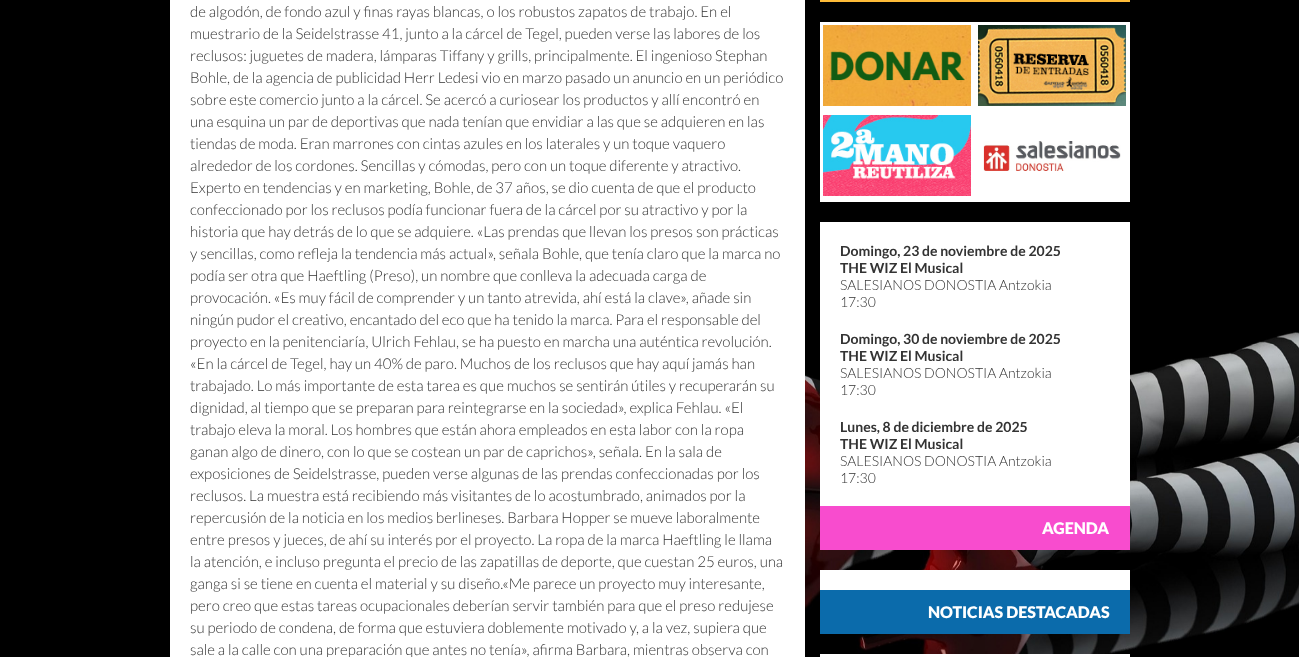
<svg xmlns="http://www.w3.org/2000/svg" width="1299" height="657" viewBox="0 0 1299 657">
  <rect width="100%" height="100%" fill="rgb(255,255,255)"/>
  <image x="0" y="0" width="1299" height="657" href="pic1.png"/>
  <rect x="170" y="0" width="635" height="657" fill="rgb(255,255,255)"/>
  <g font-family="Lato" font-size="15" font-weight="300" fill="rgb(51,51,51)">
    <text>
      <tspan x="190" y="17">de algodón, de fondo azul y finas rayas blancas, o los robustos zapatos de trabajo. En el</tspan>
      <tspan x="190" y="39">muestrario de la Seidelstrasse 41, junto a la cárcel de Tegel, pueden verse las labores de los</tspan>
      <tspan x="190" y="61">reclusos: juguetes de madera, lámparas Tiffany y grills, principalmente. El ingenioso Stephan</tspan>
      <tspan x="190" y="83">Bohle, de la agencia de publicidad Herr Ledesi vio en marzo pasado un anuncio en un periódico</tspan>
      <tspan x="190" y="105">sobre este comercio junto a la cárcel. Se acercó a curiosear los productos y allí encontró en</tspan>
      <tspan x="190" y="127">una esquina un par de deportivas que nada tenían que envidiar a las que se adquieren en las</tspan>
      <tspan x="190" y="149">tiendas de moda. Eran marrones con cintas azules en los laterales y un toque vaquero</tspan>
      <tspan x="190" y="171">alrededor de los cordones. Sencillas y cómodas, pero con un toque diferente y atractivo.</tspan>
      <tspan x="190" y="193">Experto en tendencias y en marketing, Bohle, de 37 años, se dio cuenta de que el producto</tspan>
      <tspan x="190" y="215">confeccionado por los reclusos podía funcionar fuera de la cárcel por su atractivo y por la</tspan>
      <tspan x="190" y="237">historia que hay detrás de lo que se adquiere. «Las prendas que llevan los presos son prácticas</tspan>
      <tspan x="190" y="259">y sencillas, como refleja la tendencia más actual», señala Bohle, que tenía claro que la marca no</tspan>
      <tspan x="190" y="281">podía ser otra que Haeftling (Preso), un nombre que conlleva la adecuada carga de</tspan>
      <tspan x="190" y="303">provocación. «Es muy fácil de comprender y un tanto atrevida, ahí está la clave», añade sin</tspan>
      <tspan x="190" y="325">ningún pudor el creativo, encantado del eco que ha tenido la marca. Para el responsable del</tspan>
      <tspan x="190" y="347">proyecto en la penitenciaría, Ulrich Fehlau, se ha puesto en marcha una auténtica revolución.</tspan>
      <tspan x="190" y="369">«En la cárcel de Tegel, hay un 40% de paro. Muchos de los reclusos que hay aquí jamás han</tspan>
      <tspan x="190" y="391">trabajado. Lo más importante de esta tarea es que muchos se sentirán útiles y recuperarán su</tspan>
      <tspan x="190" y="413">dignidad, al tiempo que se preparan para reintegrarse en la sociedad», explica Fehlau. «El</tspan>
      <tspan x="190" y="435">trabajo eleva la moral. Los hombres que están ahora empleados en esta labor con la ropa</tspan>
      <tspan x="190" y="457">ganan algo de dinero, con lo que se costean un par de caprichos», señala. En la sala de</tspan>
      <tspan x="190" y="479">exposiciones de Seidelstrasse, pueden verse algunas de las prendas confeccionadas por los</tspan>
      <tspan x="190" y="501">reclusos. La muestra está recibiendo más visitantes de lo acostumbrado, animados por la</tspan>
      <tspan x="190" y="523">repercusión de la noticia en los medios berlineses. Barbara Hopper se mueve laboralmente</tspan>
      <tspan x="190" y="545">entre presos y jueces, de ahí su interés por el proyecto. La ropa de la marca Haeftling le llama</tspan>
      <tspan x="190" y="567">la atención, e incluso pregunta el precio de las zapatillas de deporte, que cuestan 25 euros, una</tspan>
      <tspan x="190" y="589">ganga si se tiene en cuenta el material y su diseño.«Me parece un proyecto muy interesante,</tspan>
      <tspan x="190" y="611">pero creo que estas tareas ocupacionales deberían servir también para que el preso redujese</tspan>
      <tspan x="190" y="633">su periodo de condena, de forma que estuviera doblemente motivado y, a la vez, supiera que</tspan>
      <tspan x="190" y="655">sale a la calle con una preparación que antes no tenía», afirma Barbara, mientras observa con</tspan>
    </text>
  </g>
  <rect x="820" y="0" width="310" height="2" fill="rgb(254,187,56)"/>
  <rect x="820" y="22" width="310" height="180" fill="rgb(255,255,255)"/>
  <image x="823" y="25" width="148" height="81" href="pic2.png"/>
  <image x="978" y="25" width="148" height="81" href="pic3.png"/>
  <image x="823" y="115" width="148" height="81" href="pic4.png"/>
  <image x="983" y="141" width="138" height="30" href="pic5.png"/>
  <rect x="820" y="222" width="310" height="284" fill="rgb(255,255,255)"/>
  <g font-family="Lato" font-size="14" font-weight="bold" fill="rgb(51,51,51)">
    <text>
      <tspan x="840" y="256">Domingo, 23 de noviembre de 2025</tspan>
      <tspan x="840" y="273">THE WIZ El Musical</tspan>
    </text>
  </g>
  <g font-family="Lato" font-size="14" font-weight="300" fill="rgb(51,51,51)">
    <text>
      <tspan x="840" y="290">SALESIANOS DONOSTIA Antzokia</tspan>
      <tspan x="840" y="307">17:30</tspan>
    </text>
  </g>
  <g font-family="Lato" font-size="14" font-weight="bold" fill="rgb(51,51,51)">
    <text>
      <tspan x="840" y="344">Domingo, 30 de noviembre de 2025</tspan>
      <tspan x="840" y="361">THE WIZ El Musical</tspan>
    </text>
  </g>
  <g font-family="Lato" font-size="14" font-weight="300" fill="rgb(51,51,51)">
    <text>
      <tspan x="840" y="378">SALESIANOS DONOSTIA Antzokia</tspan>
      <tspan x="840" y="395">17:30</tspan>
    </text>
  </g>
  <g font-family="Lato" font-size="14" font-weight="bold" fill="rgb(51,51,51)">
    <text>
      <tspan x="840" y="432">Lunes, 8 de diciembre de 2025</tspan>
      <tspan x="840" y="449">THE WIZ El Musical</tspan>
    </text>
  </g>
  <g font-family="Lato" font-size="14" font-weight="300" fill="rgb(51,51,51)">
    <text>
      <tspan x="840" y="466">SALESIANOS DONOSTIA Antzokia</tspan>
      <tspan x="840" y="483">17:30</tspan>
    </text>
  </g>
  <rect x="820" y="506" width="310" height="44" fill="rgb(248,76,206)"/>
  <text x="1042" y="534" font-family="Lato" font-size="16" font-weight="900" fill="rgb(255,255,255)">AGENDA</text>
  <rect x="820" y="570" width="310" height="20" fill="rgb(255,255,255)"/>
  <rect x="820" y="590" width="310" height="44" fill="rgb(11,107,171)"/>
  <text x="928" y="618" font-family="Lato" font-size="16" font-weight="900" fill="rgb(255,255,255)">NOTICIAS DESTACADAS</text>
  <rect x="820" y="654" width="310" height="3" fill="rgb(255,255,255)"/>
</svg>
